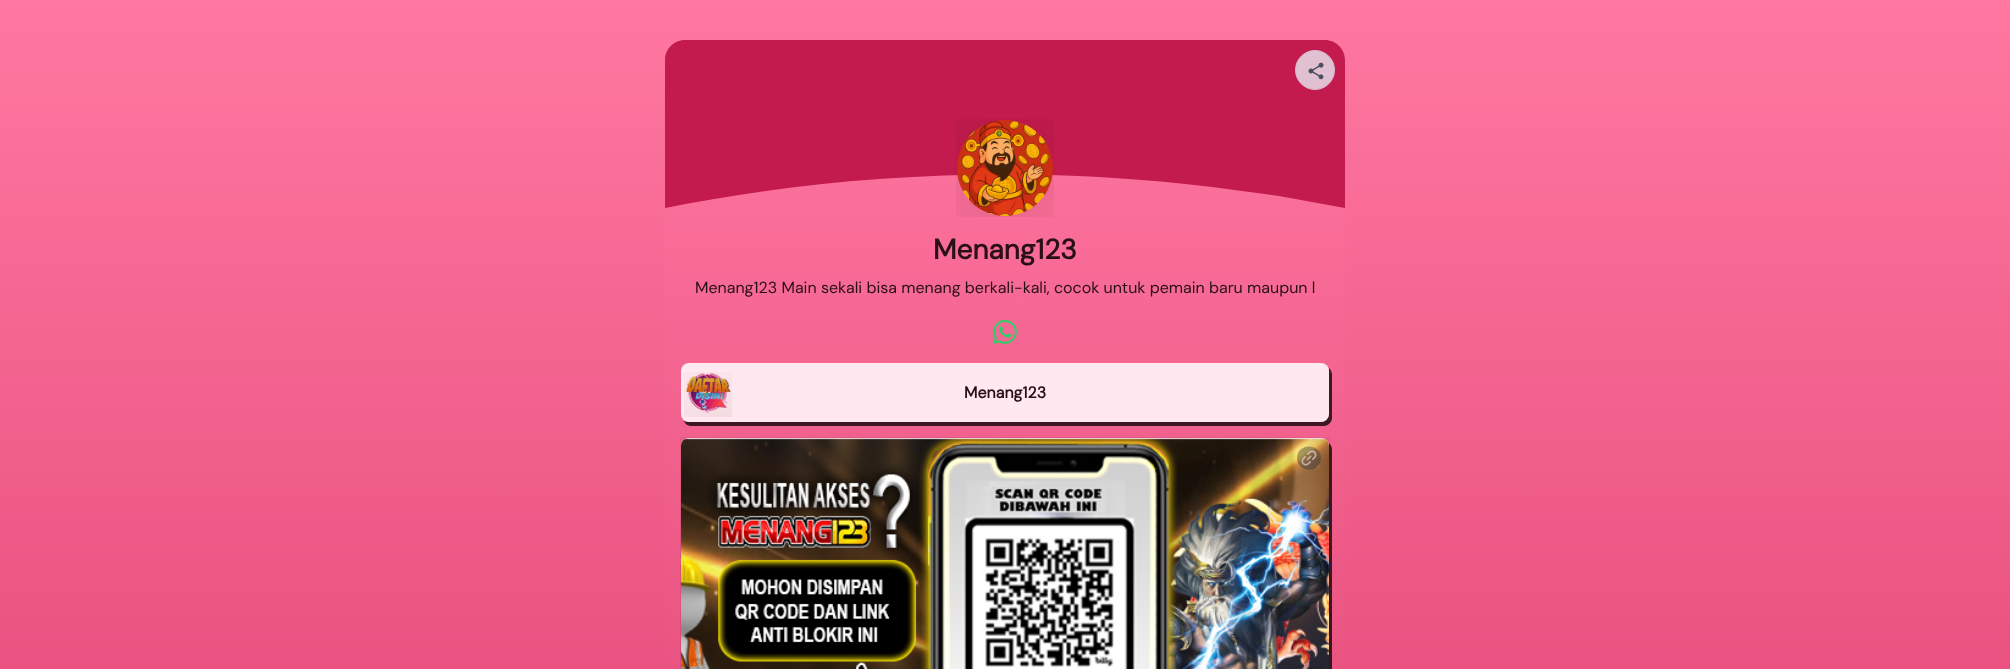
<svg xmlns="http://www.w3.org/2000/svg" width="2010" height="669" viewBox="0 0 2010 669">
  <defs>
    <linearGradient id="g1" gradientUnits="userSpaceOnUse" x1="1005" y1="0" x2="1005" y2="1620"><stop offset="0" stop-color="rgb(255,120,161)"/><stop offset="1" stop-color="rgb(203,29,82)"/></linearGradient>
    <linearGradient id="g2" gradientUnits="userSpaceOnUse" x1="1005" y1="40" x2="1005" y2="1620"><stop offset="0" stop-color="rgb(255,120,161)"/><stop offset="1" stop-color="rgb(203,29,82)"/></linearGradient>
  </defs>
  <rect width="100%" height="100%" fill="rgb(255,255,255)"/>
  <rect x="0" y="0" width="2010" height="669" fill="url(#g1)"/>
  <path d="M685 40H1325C1336 40 1345 49 1345 60V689H665V60C665 49 674 40 685 40Z" fill="url(#g2)"/>
  <path d="M685 40H1325C1336 40 1345 49 1345 60V208L1279 196L1212 187C1031 165 844 172 665 208V60C665 49 674 40 685 40Z" fill="rgb(195,27,78)"/>
  <circle cx="1315" cy="70" r="19.5" fill="rgb(225,193,209)" stroke="rgb(214,185,204)"/>
  <image x="1308" y="62" width="16" height="18" href="pic1.png"/>
  <image x="956" y="119" width="98" height="98" href="pic2.png"/>
  <text x="933" y="259" font-family="DM Sans" font-size="28" font-weight="bold" fill="rgb(41,15,23)">Menang123</text>
  <text x="695" y="293" font-family="DM Sans" font-size="16" fill="rgb(41,15,23)">Menang123 Main sekali bisa menang berkali-kali, cocok untuk pemain baru maupun l</text>
  <image x="993" y="320" width="24" height="24" href="pic3.png"/>
  <path d="M684 421C685 424 688 426 692 426H1324C1328 426 1332 422 1332 418V375C1332 372 1331 370 1329 368V371V414C1329 418 1325 422 1321 422H689C687 422 686 421 684 421Z" fill="rgba(0,0,0,0.75)"/>
  <rect x="681" y="363" width="648" height="59" rx="8" fill="rgb(255,232,239)"/>
  <image x="684" y="372" width="48" height="45" href="pic4.png"/>
  <text x="964" y="398" font-family="DM Sans" font-size="16" font-weight="bold" fill="rgb(41,15,23)">Menang123</text>
  <path d="M684 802C685 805 688 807 692 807H1324C1328 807 1332 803 1332 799V450C1332 447 1331 445 1329 443V446V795C1329 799 1325 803 1321 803H689C687 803 686 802 684 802Z" fill="rgba(0,0,0,0.75)"/>
  <rect x="681" y="438" width="648" height="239" rx="8" fill="rgb(255,232,239)"/>
  <image x="680" y="437" width="650" height="232" href="pic5.png"/>
  <path d="M1321 458C1321 473.5 1297 473.5 1297 458C1297 442.5 1321 442.5 1321 458Z" fill="rgba(39,49,68,0.4)"/>
  <image x="1301" y="450" width="16" height="16" href="pic6.png"/>
</svg>
